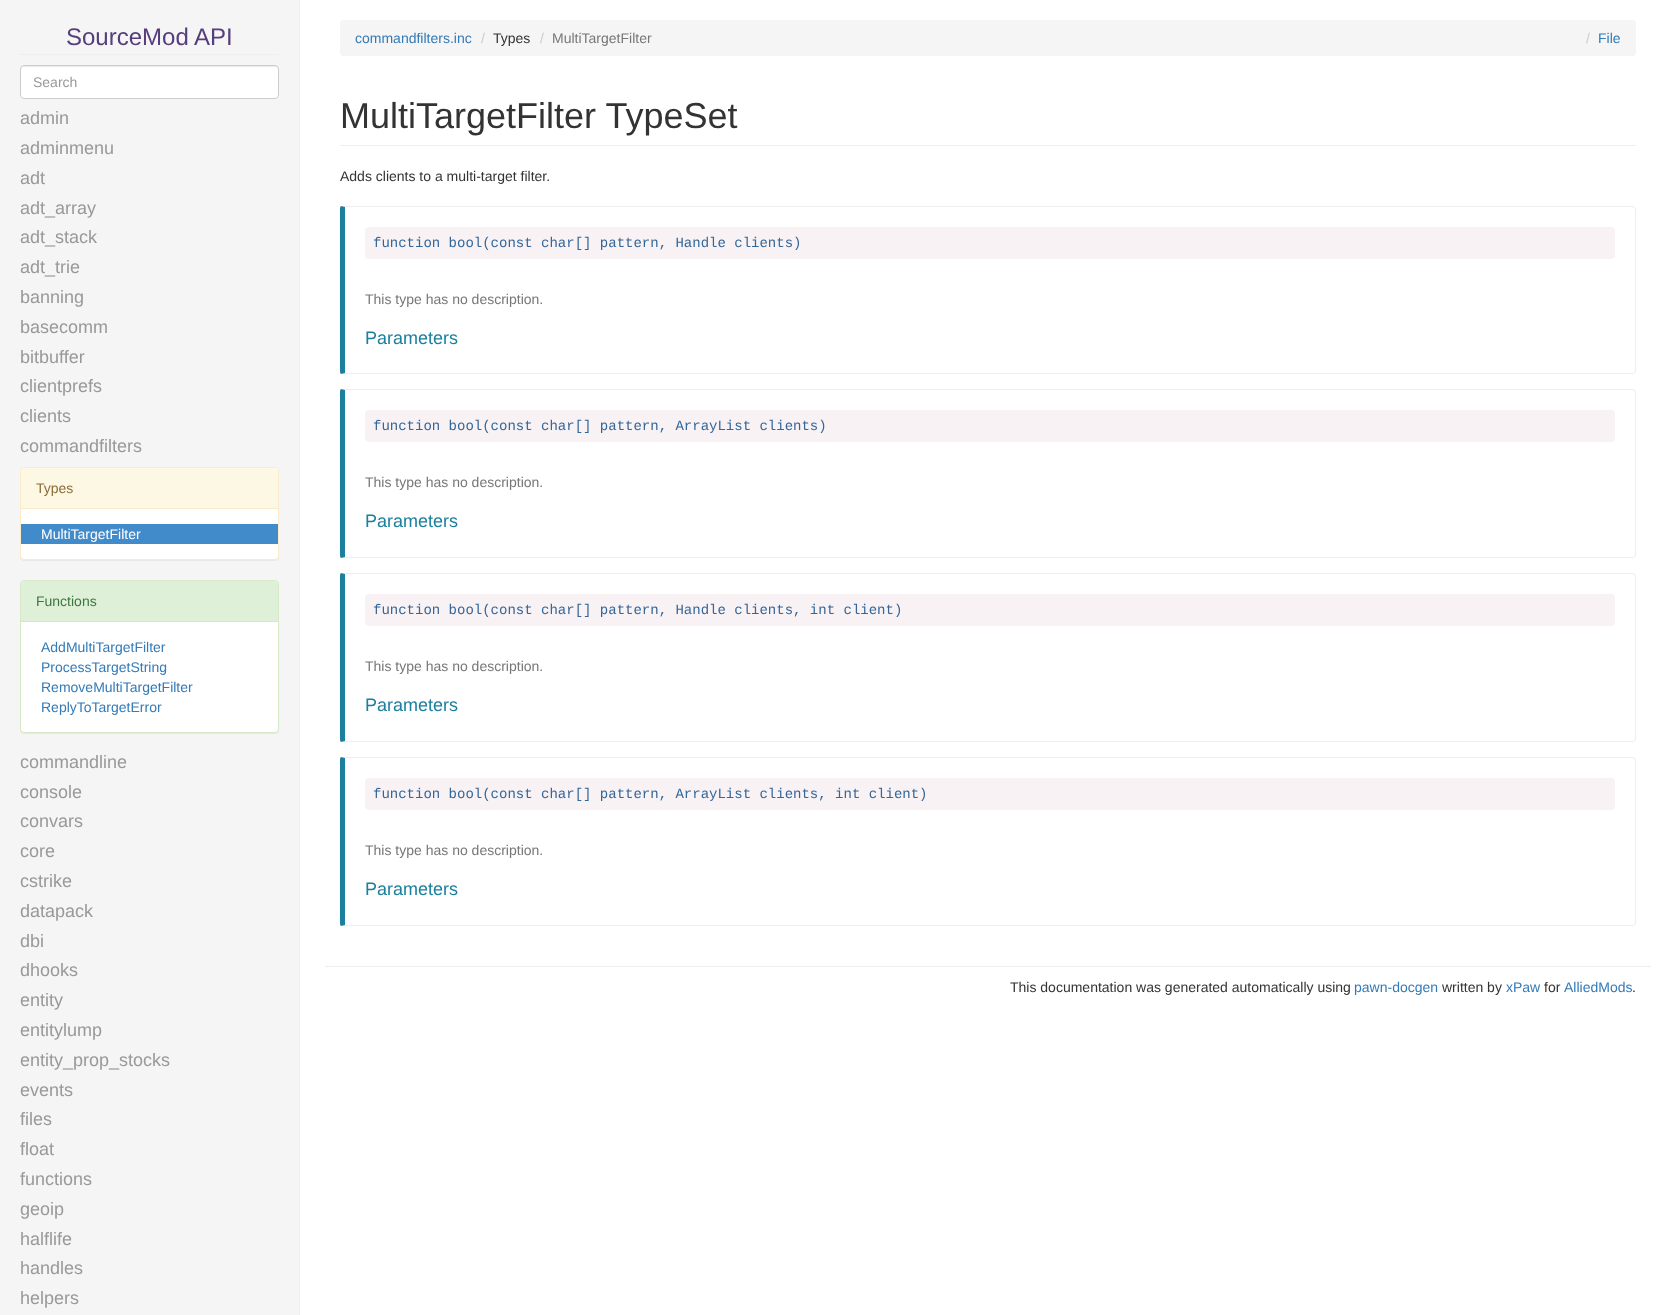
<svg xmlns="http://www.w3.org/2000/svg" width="1676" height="1315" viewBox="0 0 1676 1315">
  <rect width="100%" height="100%" fill="rgb(255,255,255)"/>
  <rect x="0" y="0" width="299" height="1315" fill="rgb(245,245,245)"/>
  <rect x="299" y="0" width="1" height="1315" fill="rgb(238,238,238)"/>
  <rect x="20" y="54" width="259" height="1" fill="rgb(238,238,238)"/>
  <text x="66" y="45" font-family="Liberation Sans" font-size="24" fill="rgb(86,61,124)">SourceMod API</text>
  <rect x="20" y="65" width="259" height="34" rx="4" fill="rgb(255,255,255)"/>
  <path d="M24 67H276L278 68V70V69C278 67 277 66 275 66H24C22 66 21 67 21 69V70C21 68 22 67 24 67Z" fill="rgb(236,236,236)"/>
  <rect x="20.5" y="65.5" width="258" height="33" rx="3.5" fill="none" stroke="rgb(204,204,204)"/>
  <text x="33" y="87" font-family="Liberation Sans" font-size="14" fill="rgb(153,153,153)">Search</text>
  <g font-family="Liberation Sans" font-size="18" fill="rgb(153,153,153)">
    <text>
      <tspan x="20" y="124">admin</tspan>
      <tspan x="20" y="154">adminmenu</tspan>
      <tspan x="20" y="184">adt</tspan>
      <tspan x="20" y="214">adt_array</tspan>
      <tspan x="20" y="243">adt_stack</tspan>
      <tspan x="20" y="273">adt_trie</tspan>
      <tspan x="20" y="303">banning</tspan>
      <tspan x="20" y="333">basecomm</tspan>
      <tspan x="20" y="363">bitbuffer</tspan>
      <tspan x="20" y="392">clientprefs</tspan>
      <tspan x="20" y="422">clients</tspan>
      <tspan x="20" y="452">commandfilters</tspan>
    </text>
  </g>
  <rect x="20" y="468" width="259" height="93" rx="4" fill="rgba(0,0,0,0.05)" filter="blur(0.5px)"/>
  <rect x="20.5" y="467.5" width="258" height="92" rx="3.5" fill="rgb(255,255,255)" stroke="rgb(250,235,204)"/>
  <path d="M24 468H275C276.5 468 278 469.5 278 471V509H21V471C21 469.5 22.5 468 24 468Z" fill="rgb(252,248,227)"/>
  <rect x="21" y="508" width="257" height="1" fill="rgb(250,235,204)"/>
  <text x="36" y="493" font-family="Liberation Sans" font-size="14" fill="rgb(138,109,59)">Types</text>
  <rect x="21" y="524" width="257" height="20" fill="rgb(66,139,202)"/>
  <text x="41" y="539" font-family="Liberation Sans" font-size="14" fill="rgb(255,255,255)">MultiTargetFilter</text>
  <rect x="20" y="581" width="259" height="153" rx="4" fill="rgba(0,0,0,0.05)" filter="blur(0.5px)"/>
  <rect x="20.5" y="580.5" width="258" height="152" rx="3.5" fill="rgb(255,255,255)" stroke="rgb(214,233,198)"/>
  <path d="M24 581H275C276.5 581 278 582.5 278 584V622H21V584C21 582.5 22.5 581 24 581Z" fill="rgb(223,240,216)"/>
  <rect x="21" y="621" width="257" height="1" fill="rgb(214,233,198)"/>
  <text x="36" y="606" font-family="Liberation Sans" font-size="14" fill="rgb(60,118,61)">Functions</text>
  <g font-family="Liberation Sans" font-size="14" fill="rgb(51,122,183)">
    <text>
      <tspan x="41" y="652">AddMultiTargetFilter</tspan>
      <tspan x="41" y="672">ProcessTargetString</tspan>
      <tspan x="41" y="692">RemoveMultiTargetFilter</tspan>
      <tspan x="41" y="712">ReplyToTargetError</tspan>
    </text>
  </g>
  <g font-family="Liberation Sans" font-size="18" fill="rgb(153,153,153)">
    <text>
      <tspan x="20" y="768">commandline</tspan>
      <tspan x="20" y="798">console</tspan>
      <tspan x="20" y="827">convars</tspan>
      <tspan x="20" y="857">core</tspan>
      <tspan x="20" y="887">cstrike</tspan>
      <tspan x="20" y="917">datapack</tspan>
      <tspan x="20" y="947">dbi</tspan>
      <tspan x="20" y="976">dhooks</tspan>
      <tspan x="20" y="1006">entity</tspan>
      <tspan x="20" y="1036">entitylump</tspan>
      <tspan x="20" y="1066">entity_prop_stocks</tspan>
      <tspan x="20" y="1096">events</tspan>
      <tspan x="20" y="1125">files</tspan>
      <tspan x="20" y="1155">float</tspan>
      <tspan x="20" y="1185">functions</tspan>
      <tspan x="20" y="1215">geoip</tspan>
      <tspan x="20" y="1245">halflife</tspan>
      <tspan x="20" y="1274">handles</tspan>
      <tspan x="20" y="1304">helpers</tspan>
    </text>
  </g>
  <rect x="340" y="20" width="1296" height="36" rx="4" fill="rgb(245,245,245)"/>
  <text x="355" y="43" font-family="Liberation Sans" font-size="14" fill="rgb(51,122,183)">commandfilters.inc</text>
  <text x="481" y="43" font-family="Liberation Sans" font-size="14" fill="rgb(204,204,204)">/</text>
  <text x="493" y="43" font-family="Liberation Sans" font-size="14" fill="rgb(51,51,51)">Types</text>
  <text x="540" y="43" font-family="Liberation Sans" font-size="14" fill="rgb(204,204,204)">/</text>
  <text x="552" y="43" font-family="Liberation Sans" font-size="14" fill="rgb(119,119,119)">MultiTargetFilter</text>
  <text x="1586" y="43" font-family="Liberation Sans" font-size="14" fill="rgb(204,204,204)">/</text>
  <text x="1598" y="43" font-family="Liberation Sans" font-size="14" fill="rgb(51,122,183)">File</text>
  <rect x="340" y="145" width="1296" height="1" fill="rgb(238,238,238)"/>
  <text x="340" y="128" font-family="Liberation Sans" font-size="36" fill="rgb(51,51,51)">MultiTargetFilter TypeSet</text>
  <text x="340" y="181" font-family="Liberation Sans" font-size="14" fill="rgb(51,51,51)">Adds clients to a multi-target filter.</text>
  <path d="M343 206H341L345 207H1633L1634 208L1635 207L1633 206Z" fill="rgb(238,238,238)"/>
  <path d="M1636 371V209L1635 207L1634 208L1635 209V371L1634 372L1635 373Z" fill="rgb(238,238,238)"/>
  <path d="M343 374H1633L1635 373L1634 372L1633 373H345L341 374Z" fill="rgb(238,238,238)"/>
  <path d="M345 207L341 206C340 207 340 208 340 209V371C340 372 340 373 341 374L345 373Z" fill="rgb(27,128,158)"/>
  <rect x="365" y="227" width="1250" height="32" rx="4" fill="rgb(249,242,244)"/>
  <text x="373" y="247" font-family="Liberation Mono" font-size="14" fill="rgb(51,102,153)">function bool(const char[] pattern, Handle clients)</text>
  <text x="365" y="304" font-family="Liberation Sans" font-size="14" fill="rgb(119,119,119)">This type has no description.</text>
  <text x="365" y="344" font-family="Liberation Sans" font-size="18" fill="rgb(27,128,158)">Parameters</text>
  <path d="M343 389H341L345 390H1633L1634 391L1635 390L1633 389Z" fill="rgb(238,238,238)"/>
  <path d="M1636 555V392L1635 390L1634 391L1635 392V555L1634 556L1635 557Z" fill="rgb(238,238,238)"/>
  <path d="M343 558H1633L1635 557L1634 556L1633 557H345L341 558Z" fill="rgb(238,238,238)"/>
  <path d="M345 390L341 389C340 390 340 391 340 392V555C340 556 340 557 341 558L345 557Z" fill="rgb(27,128,158)"/>
  <rect x="365" y="410" width="1250" height="32" rx="4" fill="rgb(249,242,244)"/>
  <text x="373" y="430" font-family="Liberation Mono" font-size="14" fill="rgb(51,102,153)">function bool(const char[] pattern, ArrayList clients)</text>
  <text x="365" y="487" font-family="Liberation Sans" font-size="14" fill="rgb(119,119,119)">This type has no description.</text>
  <text x="365" y="527" font-family="Liberation Sans" font-size="18" fill="rgb(27,128,158)">Parameters</text>
  <path d="M343 573H341L345 574H1633L1634 575L1635 574L1633 573Z" fill="rgb(238,238,238)"/>
  <path d="M1636 739V576L1635 574L1634 575L1635 576V739L1634 740L1635 741Z" fill="rgb(238,238,238)"/>
  <path d="M343 742H1633L1635 741L1634 740L1633 741H345L341 742Z" fill="rgb(238,238,238)"/>
  <path d="M345 574L341 573C340 574 340 575 340 576V739C340 740 340 741 341 742L345 741Z" fill="rgb(27,128,158)"/>
  <rect x="365" y="594" width="1250" height="32" rx="4" fill="rgb(249,242,244)"/>
  <text x="373" y="614" font-family="Liberation Mono" font-size="14" fill="rgb(51,102,153)">function bool(const char[] pattern, Handle clients, int client)</text>
  <text x="365" y="671" font-family="Liberation Sans" font-size="14" fill="rgb(119,119,119)">This type has no description.</text>
  <text x="365" y="711" font-family="Liberation Sans" font-size="18" fill="rgb(27,128,158)">Parameters</text>
  <path d="M343 757H341L345 758H1633L1634 759L1635 758L1633 757Z" fill="rgb(238,238,238)"/>
  <path d="M1636 923V760L1635 758L1634 759L1635 760V923L1634 924L1635 925Z" fill="rgb(238,238,238)"/>
  <path d="M343 926H1633L1635 925L1634 924L1633 925H345L341 926Z" fill="rgb(238,238,238)"/>
  <path d="M345 758L341 757C340 758 340 759 340 760V923C340 924 340 925 341 926L345 925Z" fill="rgb(27,128,158)"/>
  <rect x="365" y="778" width="1250" height="32" rx="4" fill="rgb(249,242,244)"/>
  <text x="373" y="798" font-family="Liberation Mono" font-size="14" fill="rgb(51,102,153)">function bool(const char[] pattern, ArrayList clients, int client)</text>
  <text x="365" y="855" font-family="Liberation Sans" font-size="14" fill="rgb(119,119,119)">This type has no description.</text>
  <text x="365" y="895" font-family="Liberation Sans" font-size="18" fill="rgb(27,128,158)">Parameters</text>
  <rect x="325" y="966" width="1326" height="1" fill="rgb(238,238,238)"/>
  <text x="1010" y="992" font-family="Liberation Sans" font-size="14" fill="rgb(51,51,51)">This documentation was generated automatically using</text>
  <text x="1354" y="992" font-family="Liberation Sans" font-size="14" fill="rgb(51,122,183)">pawn-docgen</text>
  <text x="1442" y="992" font-family="Liberation Sans" font-size="14" fill="rgb(51,51,51)">written by</text>
  <text x="1506" y="992" font-family="Liberation Sans" font-size="14" fill="rgb(51,122,183)">xPaw</text>
  <text x="1544" y="992" font-family="Liberation Sans" font-size="14" fill="rgb(51,51,51)">for</text>
  <text x="1564" y="992" font-family="Liberation Sans" font-size="14" fill="rgb(51,122,183)">AlliedMods</text>
  <text x="1632" y="992" font-family="Liberation Sans" font-size="14" fill="rgb(51,51,51)">.</text>
</svg>
